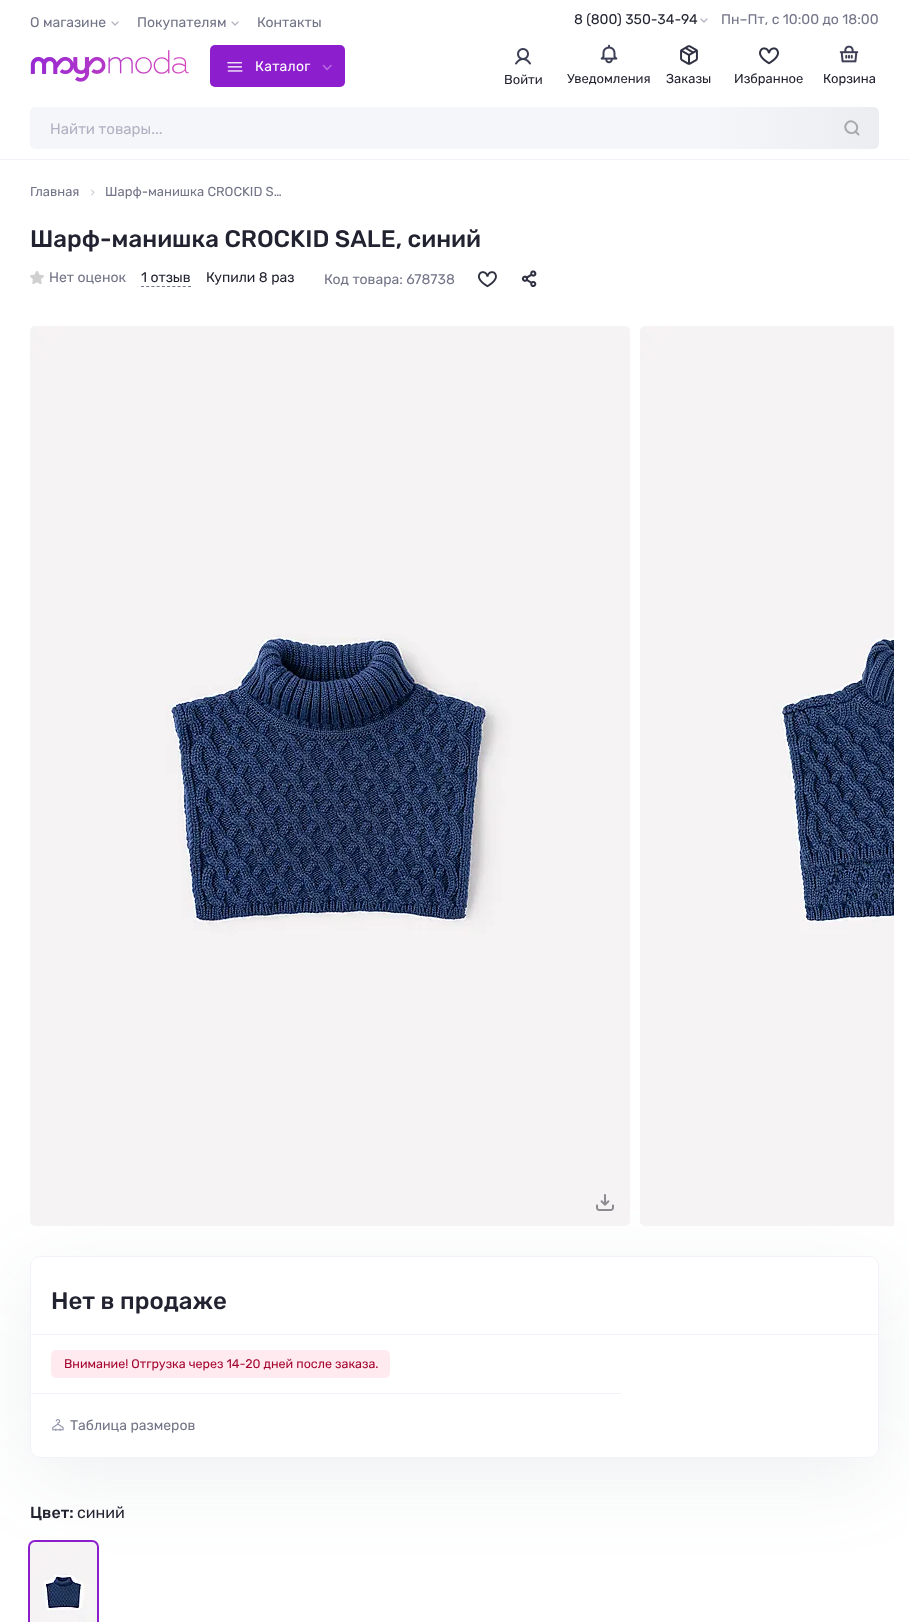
<svg xmlns="http://www.w3.org/2000/svg" width="909" height="1622" viewBox="0 0 909 1622">
  <defs>
    <linearGradient id="g1" gradientUnits="userSpaceOnUse" x1="30" y1="128" x2="879" y2="128"><stop offset="0.8" stop-color="rgb(245,246,249)"/><stop offset="1" stop-color="rgb(235,237,241)"/></linearGradient>
    <clipPath id="clip1"><path d="M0 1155H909V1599H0ZM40 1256H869C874.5 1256 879 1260.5 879 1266V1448C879 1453.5 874.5 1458 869 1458H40C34.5 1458 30 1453.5 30 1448V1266C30 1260.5 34.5 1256 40 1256Z" clip-rule="evenodd"/></clipPath>
  </defs>
  <rect width="100%" height="100%" fill="rgb(255,255,255)"/>
  <rect x="0" y="159" width="909" height="1" fill="rgb(242,242,249)"/>
  <text x="30" y="27" font-family="Rubik" font-size="14" fill="rgb(114,116,135)">О магазине</text>
  <path d="M118 22L115 25L112 22" fill="none" stroke="rgb(176,177,193)" stroke-width="1.2" stroke-linecap="round" stroke-linejoin="round"/>
  <text x="137" y="27" font-family="Rubik" font-size="14" fill="rgb(114,116,135)">Покупателям</text>
  <path d="M238 22L235 25L232 22" fill="none" stroke="rgb(176,177,193)" stroke-width="1.2" stroke-linecap="round" stroke-linejoin="round"/>
  <text x="257" y="27" font-family="Rubik" font-size="14" fill="rgb(114,116,135)">Контакты</text>
  <text x="574" y="24" font-family="Rubik" font-size="14" fill="rgb(34,35,48)">8 (800) 350-34-94</text>
  <path d="M707 19L704 22L701 19" fill="none" stroke="rgb(176,177,193)" stroke-width="1.2" stroke-linecap="round" stroke-linejoin="round"/>
  <text x="721" y="24" font-family="Rubik" font-size="14" fill="rgb(114,116,135)">Пн–Пт, с 10:00 до 18:00</text>
  <image x="30" y="50" width="159" height="32" href="pic1.png"/>
  <rect x="210" y="45" width="135" height="42" rx="5" fill="rgb(141,30,205)"/>
  <image x="227" y="62" width="16" height="10" href="pic2.png"/>
  <text x="255" y="71" font-family="Rubik" font-size="14" letter-spacing="0.25" fill="rgb(255,255,255)">Каталог</text>
  <path d="M331 65.5L327 69.5L323.5 65.5" fill="none" stroke="rgb(181,109,223)" stroke-width="1.5" stroke-linecap="round" stroke-linejoin="round"/>
  <image x="515" y="48" width="16" height="17" href="pic3.png"/>
  <text x="504" y="84" font-family="Rubik" font-size="13" fill="rgb(34,35,48)">Войти</text>
  <image x="600" y="44" width="18" height="20" href="pic4.png"/>
  <text x="567" y="83" font-family="Rubik" font-size="13" fill="rgb(34,35,48)">Уведомления</text>
  <image x="680" y="45" width="18" height="20" href="pic5.png"/>
  <text x="666" y="83" font-family="Rubik" font-size="13" fill="rgb(34,35,48)">Заказы</text>
  <image x="759" y="47" width="20" height="18" href="pic6.png"/>
  <text x="734" y="83" font-family="Rubik" font-size="13" fill="rgb(34,35,48)">Избранное</text>
  <image x="839" y="45" width="20" height="18" href="pic7.png"/>
  <text x="823" y="83" font-family="Rubik" font-size="13" fill="rgb(34,35,48)">Корзина</text>
  <rect x="30" y="107" width="849" height="42" rx="5" fill="url(#g1)"/>
  <rect x="29.5" y="106.5" width="850" height="43" rx="5.5" fill="none" stroke="rgb(255,255,255)"/>
  <text x="50" y="134" font-family="Rubik" font-size="15" fill="rgb(176,177,194)">Найти товары...</text>
  <path d="M858.5 134.5L855.5 131.5M855.5 131.5C861 126 852 117.5 847 123C841.5 128.5 850 136.5 855.5 131.5Z" fill="none" stroke="rgb(166,169,174)" stroke-width="2" stroke-linecap="round" stroke-linejoin="round"/>
  <text x="30" y="196" font-family="Rubik" font-size="13" fill="rgb(114,116,135)">Главная</text>
  <path d="M91.5 190L94 192.5L91.5 195" fill="none" stroke="rgb(176,177,193)" stroke-linecap="round" stroke-linejoin="round"/>
  <text x="105" y="196" font-family="Rubik" font-size="13" fill="rgb(114,116,135)">Шарф-манишка CROCKID S…</text>
  <text x="30" y="247" font-family="Rubik" font-size="24" font-weight="500" fill="rgb(34,35,48)">Шарф-манишка CROCKID SALE, синий</text>
  <image x="30" y="271" width="14" height="13" href="pic8.png"/>
  <text x="49" y="282" font-family="Rubik" font-size="14" fill="rgb(114,116,135)">Нет оценок</text>
  <path d="M141 286.5H191" fill="none" stroke="rgb(114,116,135)" stroke-dasharray="3 2.22"/>
  <g font-family="Rubik" font-size="14" fill="rgb(34,35,48)">
    <text x="141" y="282">1 отзыв</text>
    <text x="206" y="282">Купили 8 раз</text>
  </g>
  <text x="324" y="284" font-family="Rubik" font-size="14" fill="rgb(114,116,135)">Код товара: 678738</text>
  <image x="478" y="271" width="19" height="17" href="pic9.png"/>
  <image x="521" y="270" width="16" height="17" href="pic10.png"/>
  <g clip-path="url(#clip1)">
    <rect x="30" y="1276" width="849" height="202" rx="10" fill="rgba(93,106,120,0.1)" filter="blur(40px)"/>
  </g>
  <image x="30" y="326" width="600" height="900" href="pic11.png"/>
  <image x="596" y="1194" width="18" height="17" href="pic12.png"/>
  <image x="640" y="326" width="254" height="900" href="pic13.png"/>
  <rect x="30.5" y="1256.5" width="848" height="201" rx="9.5" fill="none" stroke="rgb(242,242,249)"/>
  <text x="51" y="1309" font-family="Rubik" font-size="24" font-weight="500" fill="rgb(34,35,48)">Нет в продаже</text>
  <rect x="31" y="1334" width="847" height="1" fill="rgb(242,242,249)"/>
  <rect x="51" y="1350" width="339" height="28" rx="5" fill="rgb(255,234,239)"/>
  <text x="64" y="1368" font-family="Rubik" font-size="12.5" fill="rgb(165,4,47)">Внимание! Отгрузка через 14-20 дней после заказа.</text>
  <rect x="31" y="1393" width="590" height="1" fill="rgb(242,242,249)"/>
  <image x="52" y="1419" width="12" height="12" href="pic14.png"/>
  <text x="70" y="1430" font-family="Rubik" font-size="14" fill="rgb(114,116,135)">Таблица размеров</text>
  <text x="30" y="1518" font-family="Rubik" font-size="16" font-weight="500" fill="rgb(34,35,48)">Цвет:</text>
  <text x="77" y="1518" font-family="Rubik" font-size="16" fill="rgb(34,35,48)">синий</text>
  <image x="30" y="1542" width="67" height="80" href="pic15.png"/>
  <rect x="29" y="1541" width="69" height="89" rx="6" fill="none" stroke="rgb(141,30,205)" stroke-width="2"/>
</svg>
